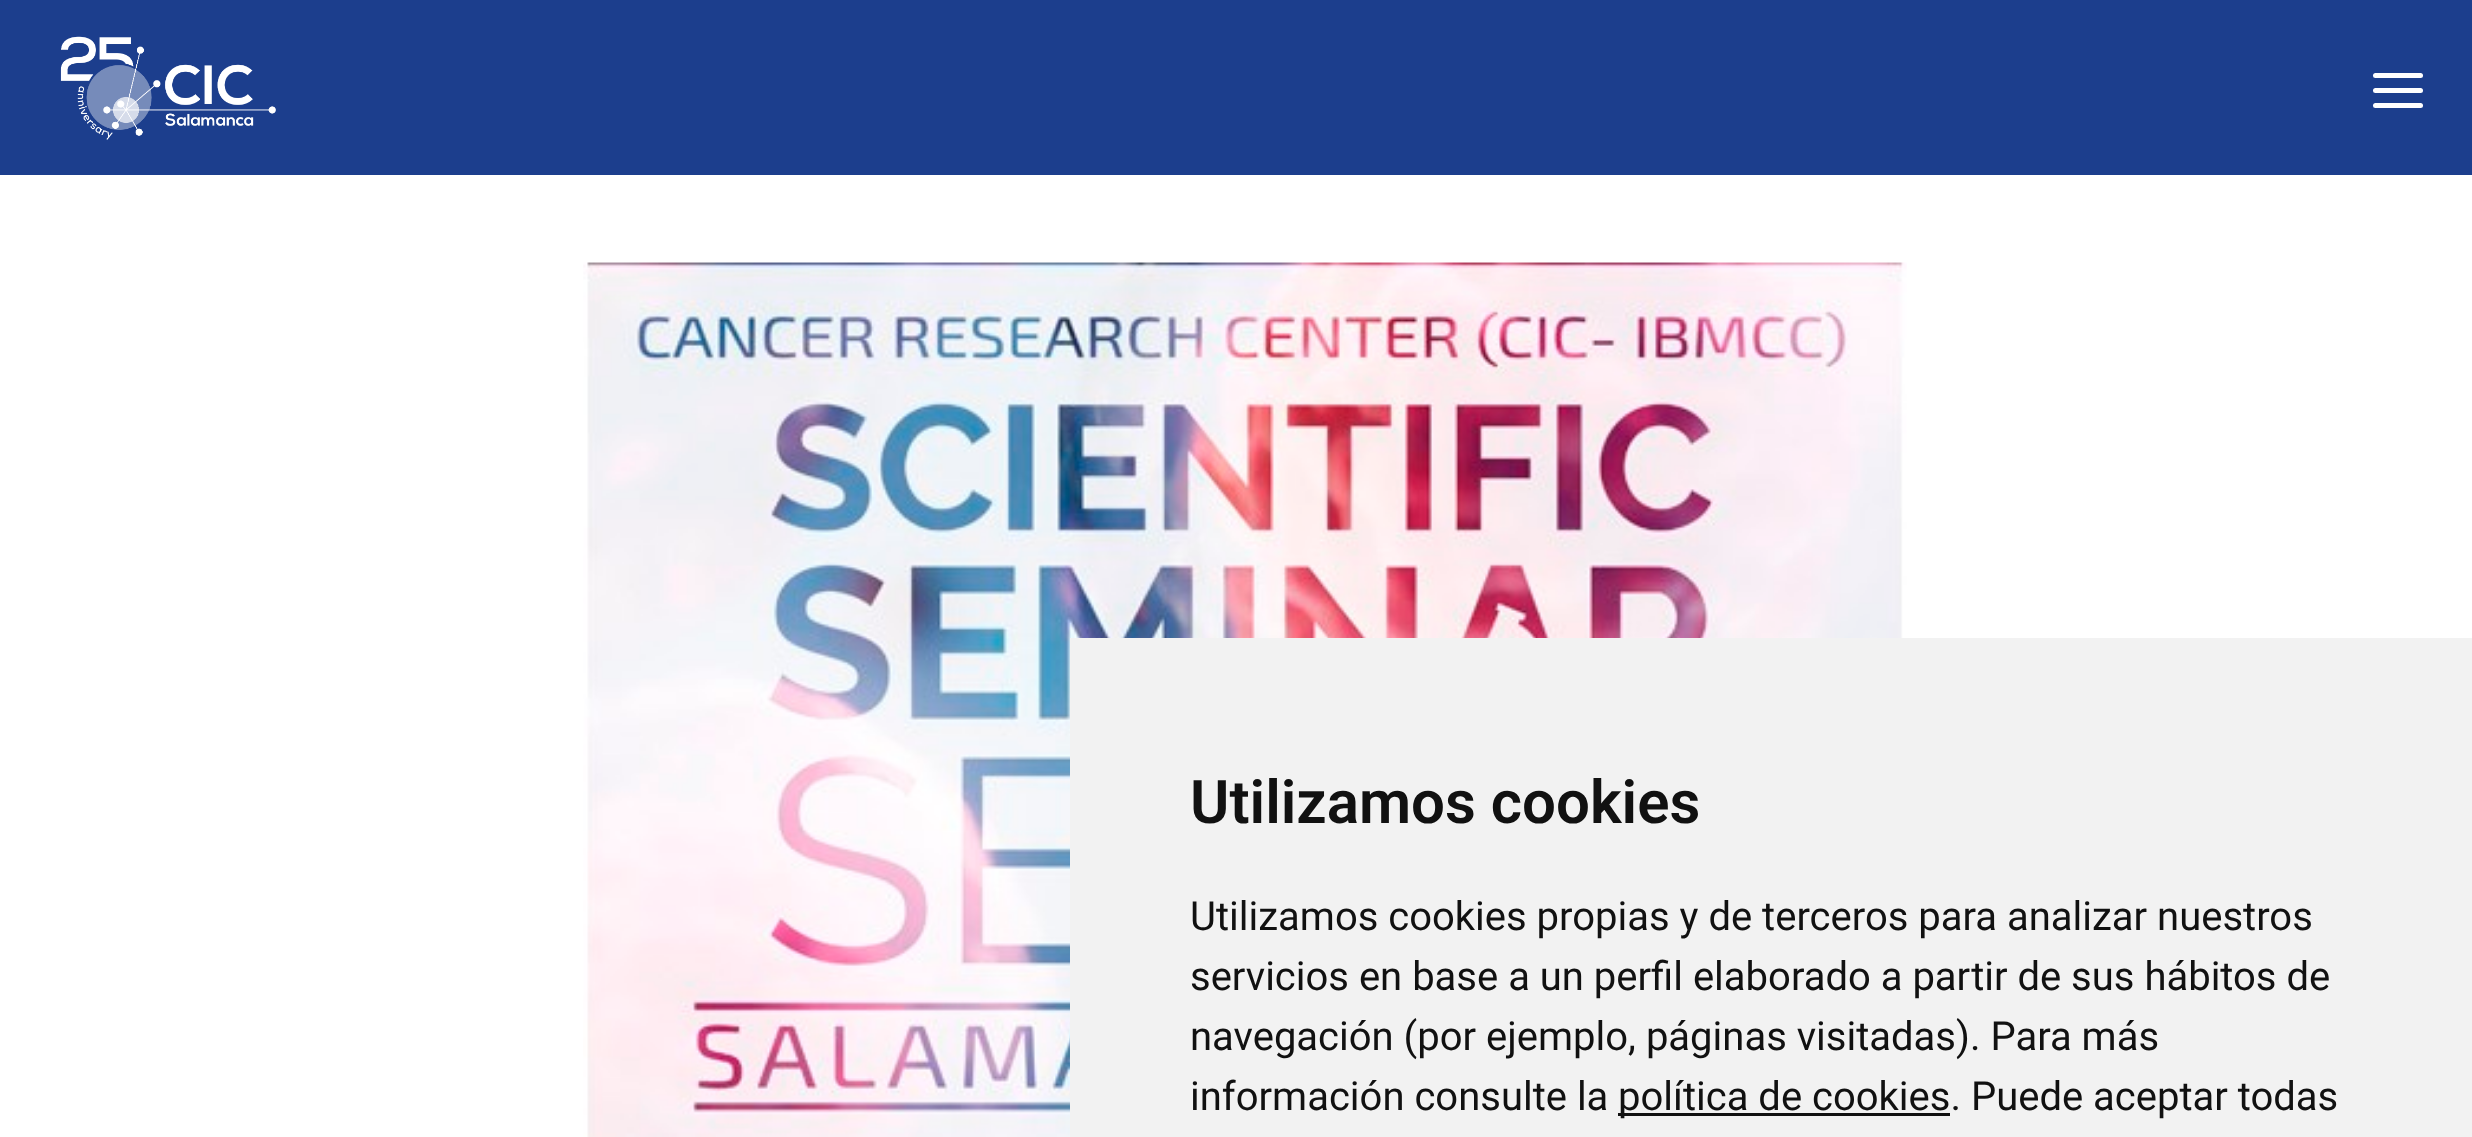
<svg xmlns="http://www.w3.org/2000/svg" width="2472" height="1137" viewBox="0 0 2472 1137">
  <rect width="100%" height="100%" fill="rgb(255,255,255)"/>
  <rect x="0" y="0" width="2472" height="175" fill="rgb(28,62,141)"/>
  <image x="60" y="36" width="216" height="104" href="pic1.png"/>
  <rect x="2373" y="103" width="50" height="5" rx="2.5" fill="rgb(255,255,255)"/>
  <rect x="2373" y="73" width="50" height="5" rx="2.5" fill="rgb(255,255,255)"/>
  <rect x="2373" y="88" width="50" height="5" rx="2.5" fill="rgb(255,255,255)"/>
  <image x="583" y="262" width="1324" height="875" href="pic2.png"/>
  <rect x="1070" y="638" width="1402" height="499" fill="rgb(242,242,242)"/>
  <text x="1190" y="823" font-family="Roboto" font-size="60" font-weight="600" fill="rgb(17,17,17)">Utilizamos cookies</text>
  <g font-family="Roboto" font-size="40" fill="rgb(17,17,17)">
    <text>
      <tspan x="1190" y="930">Utilizamos cookies propias y de terceros para analizar nuestros</tspan>
      <tspan x="1190" y="990">servicios en base a un perfil elaborado a partir de sus hábitos de</tspan>
      <tspan x="1190" y="1050">navegación (por ejemplo, páginas visitadas). Para más</tspan>
      <tspan x="1190" y="1110">información consulte la</tspan>
    </text>
  </g>
  <rect x="1618" y="1113" width="332" height="3" fill="rgb(17,17,17)"/>
  <text x="1618" y="1110" font-family="Roboto" font-size="40" fill="rgb(17,17,17)">política de cookies. Puede aceptar todas</text>
</svg>
